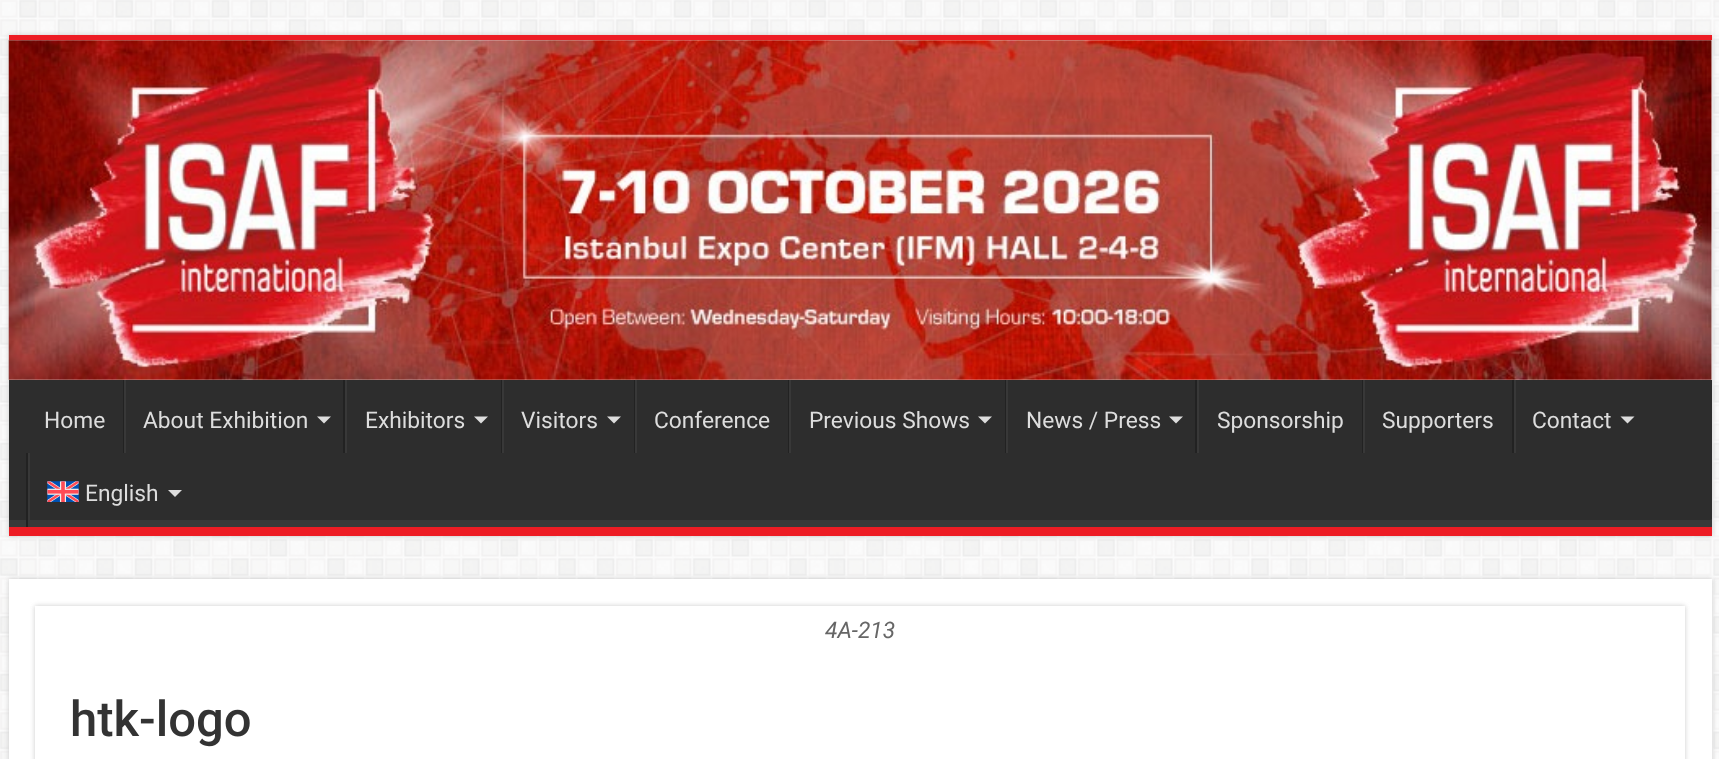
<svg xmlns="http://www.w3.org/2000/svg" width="1719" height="759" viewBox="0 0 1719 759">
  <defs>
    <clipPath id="clip1"><rect x="9" y="380" width="1703" height="147"/></clipPath>
    <clipPath id="clip2"><path d="M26 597H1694V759H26ZM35 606H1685V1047H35Z" clip-rule="evenodd"/></clipPath>
  </defs>
  <rect width="100%" height="100%" fill="rgb(255,255,255)"/>
  <image x="0" y="0" width="1719" height="759" href="pic1.png"/>
  <rect x="9" y="35" width="1703" height="501" fill="rgb(202,202,202)" filter="blur(2.5px)"/>
  <rect x="9" y="40" width="1703" height="340" fill="rgb(255,255,255)"/>
  <rect x="9" y="35" width="1703" height="5" fill="rgb(237,28,36)"/>
  <image x="8" y="40" width="1704" height="340" href="pic2.png"/>
  <rect x="9" y="380" width="1703" height="140" fill="rgb(45,45,45)"/>
  <g clip-path="url(#clip1)">
    <path d="M-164 206H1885V700H-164ZM7 369H1710C1711 369 1712 370 1712 371V518C1712 519 1711 520 1710 520H7C6 520 5 519 5 518V371C5 370 6 369 7 369Z" fill="rgb(57,57,57)" fill-rule="evenodd"/>
  </g>
  <rect x="9" y="527" width="1703" height="9" fill="rgb(237,28,36)"/>
  <text x="44" y="428" font-family="Roboto" font-size="22.75" fill="rgb(221,221,221)">Home</text>
  <rect x="123" y="380" width="1" height="73" fill="rgb(34,34,34)"/>
  <rect x="124" y="380" width="2" height="73" fill="rgb(56,56,56)"/>
  <text x="143" y="428" font-family="Roboto" font-size="22.75" fill="rgb(221,221,221)">About Exhibition</text>
  <path d="M317 416.5H331L324 423.5Z" fill="rgb(221,221,221)"/>
  <rect x="343" y="380" width="2" height="73" fill="rgb(34,34,34)"/>
  <rect x="345" y="380" width="2" height="73" fill="rgb(56,56,56)"/>
  <text x="365" y="428" font-family="Roboto" font-size="22.75" fill="rgb(221,221,221)">Exhibitors</text>
  <path d="M474 416.5H488L481 423.5Z" fill="rgb(221,221,221)"/>
  <rect x="501" y="380" width="1" height="73" fill="rgb(34,34,34)"/>
  <rect x="502" y="380" width="2" height="73" fill="rgb(56,56,56)"/>
  <text x="521" y="428" font-family="Roboto" font-size="22.75" fill="rgb(221,221,221)">Visitors</text>
  <path d="M607 416.5H621L614 423.5Z" fill="rgb(221,221,221)"/>
  <rect x="634" y="380" width="1" height="73" fill="rgb(34,34,34)"/>
  <rect x="635" y="380" width="2" height="73" fill="rgb(56,56,56)"/>
  <text x="654" y="428" font-family="Roboto" font-size="22.75" fill="rgb(221,221,221)">Conference</text>
  <rect x="788" y="380" width="1" height="73" fill="rgb(34,34,34)"/>
  <rect x="789" y="380" width="2" height="73" fill="rgb(56,56,56)"/>
  <text x="809" y="428" font-family="Roboto" font-size="22.75" fill="rgb(221,221,221)">Previous Shows</text>
  <path d="M978 416.5H992L985 423.5Z" fill="rgb(221,221,221)"/>
  <rect x="1005" y="380" width="1" height="73" fill="rgb(34,34,34)"/>
  <rect x="1006" y="380" width="2" height="73" fill="rgb(56,56,56)"/>
  <text x="1026" y="428" font-family="Roboto" font-size="22.75" fill="rgb(221,221,221)">News / Press</text>
  <path d="M1169 416.5H1183L1176 423.5Z" fill="rgb(221,221,221)"/>
  <rect x="1195" y="380" width="2" height="73" fill="rgb(34,34,34)"/>
  <rect x="1197" y="380" width="2" height="73" fill="rgb(56,56,56)"/>
  <text x="1217" y="428" font-family="Roboto" font-size="22.75" fill="rgb(221,221,221)">Sponsorship</text>
  <rect x="1362" y="380" width="1" height="73" fill="rgb(34,34,34)"/>
  <rect x="1363" y="380" width="2" height="73" fill="rgb(56,56,56)"/>
  <text x="1382" y="428" font-family="Roboto" font-size="22.75" fill="rgb(221,221,221)">Supporters</text>
  <rect x="1512" y="380" width="2" height="73" fill="rgb(34,34,34)"/>
  <rect x="1514" y="380" width="2" height="73" fill="rgb(56,56,56)"/>
  <text x="1532" y="428" font-family="Roboto" font-size="22.75" fill="rgb(221,221,221)">Contact</text>
  <path d="M1620.5 416.5H1634.5L1627.5 423.5Z" fill="rgb(221,221,221)"/>
  <rect x="26" y="453" width="2" height="74" fill="rgb(34,34,34)"/>
  <rect x="28" y="453" width="2" height="74" fill="rgb(56,56,56)"/>
  <image x="47" y="481" width="32" height="21" href="pic3.png"/>
  <text x="85" y="501" font-family="Roboto" font-size="22.75" fill="rgb(221,221,221)">English</text>
  <path d="M168 490H182L175 497Z" fill="rgb(221,221,221)"/>
  <rect x="9" y="579" width="1703" height="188" fill="rgb(202,202,202)" filter="blur(2.5px)"/>
  <rect x="9" y="579" width="1703" height="180" fill="rgb(255,255,255)"/>
  <g clip-path="url(#clip2)">
    <rect x="35" y="606" width="1650" height="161" fill="rgb(202,202,202)" filter="blur(2.5px)"/>
  </g>
  <text x="825" y="638" font-family="Roboto" font-size="22.75" font-style="italic" fill="rgb(102,102,102)">4A-213</text>
  <text x="70" y="736" font-family="Roboto" font-size="49" font-weight="500" fill="rgb(51,51,51)">htk-logo</text>
</svg>
